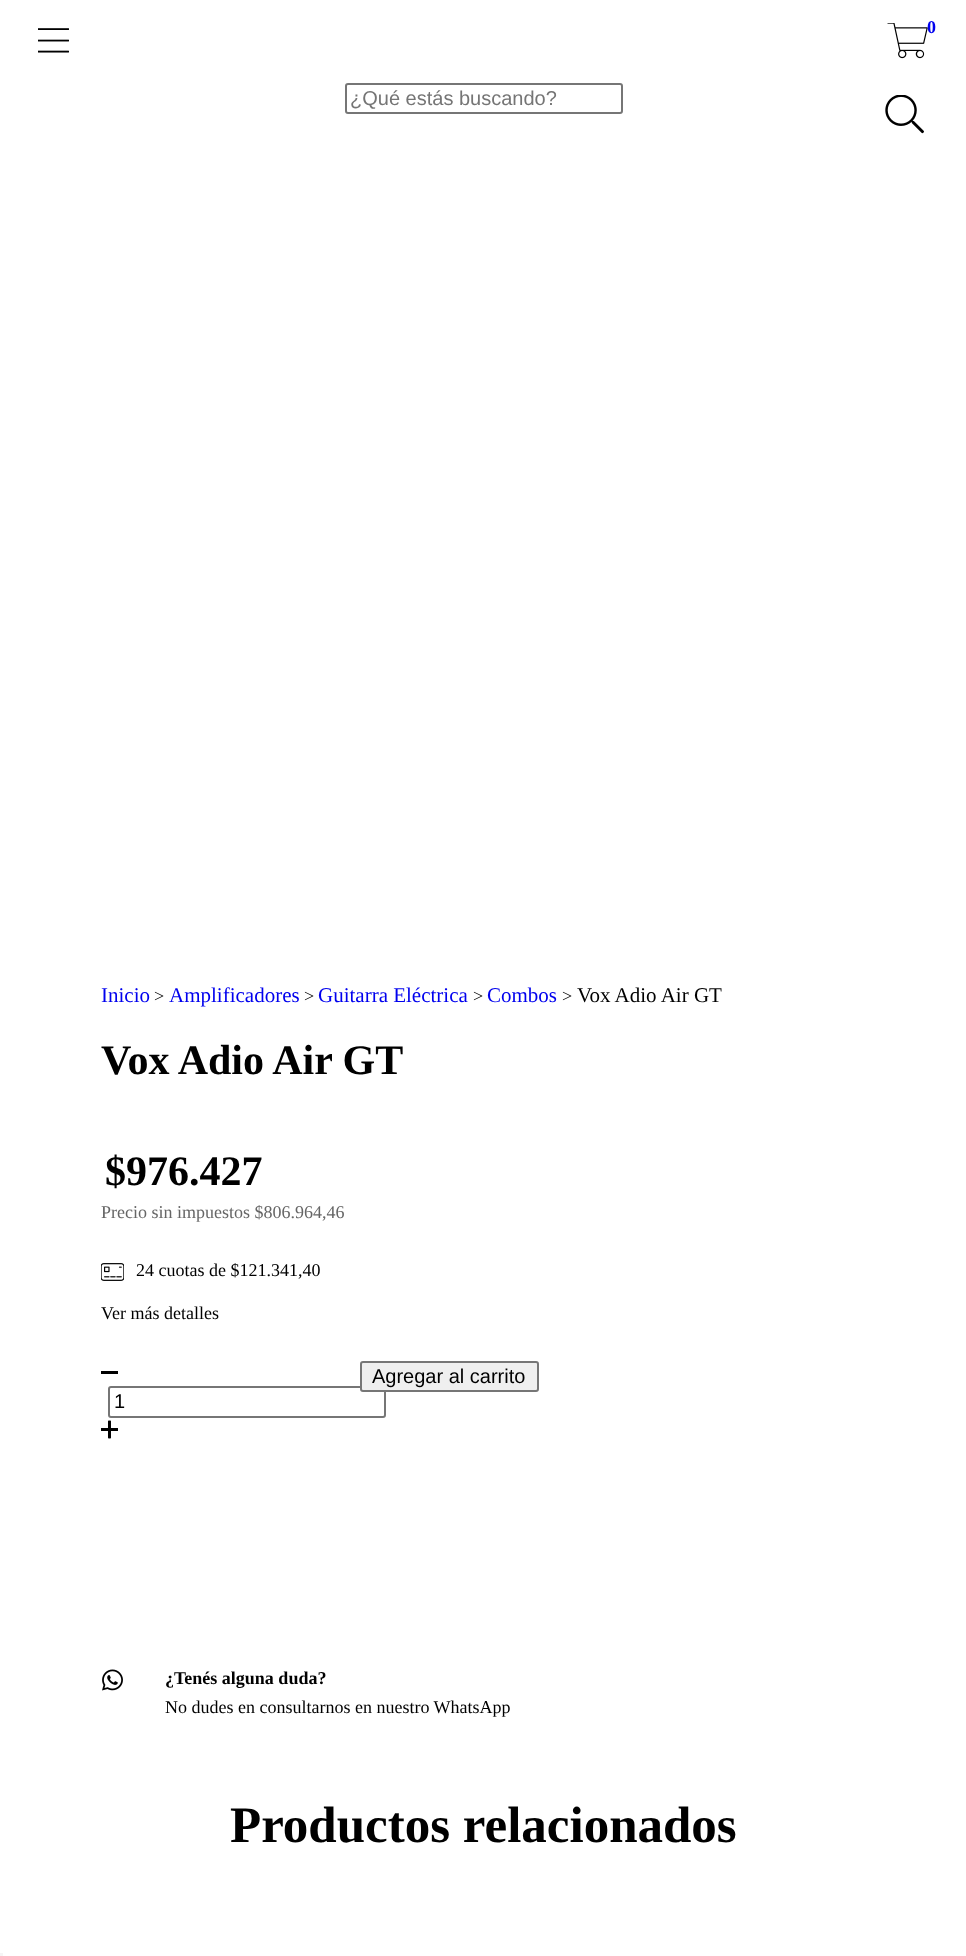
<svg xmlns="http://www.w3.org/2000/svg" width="966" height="1956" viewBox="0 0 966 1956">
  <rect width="100%" height="100%" fill="rgb(255,255,255)"/>
  <image x="38" y="28" width="31" height="25" href="pic1.png"/>
  <image x="887" y="23" width="41" height="36" href="pic2.png"/>
  <text x="927" y="33" font-family="Liberation Serif" font-size="18" font-weight="bold" fill="rgb(0,0,238)">0</text>
  <rect x="346" y="84" width="276" height="29" rx="2" fill="none" stroke="rgb(118,118,118)" stroke-width="2"/>
  <text x="350" y="105" font-family="Liberation Sans" font-size="20" fill="rgb(117,117,117)">¿Qué estás buscando?</text>
  <image x="885" y="95" width="39" height="39" href="pic3.png"/>
  <text x="101" y="1002" font-family="Liberation Serif" font-size="21" fill="rgb(0,0,238)">Inicio</text>
  <text x="154" y="1002" font-family="Liberation Serif" font-size="18" fill="rgb(0,0,0)">&gt;</text>
  <text x="169" y="1002" font-family="Liberation Serif" font-size="21" fill="rgb(0,0,238)">Amplificadores</text>
  <text x="304" y="1002" font-family="Liberation Serif" font-size="18" fill="rgb(0,0,0)">&gt;</text>
  <text x="318" y="1002" font-family="Liberation Serif" font-size="21" fill="rgb(0,0,238)">Guitarra Eléctrica</text>
  <text x="473" y="1002" font-family="Liberation Serif" font-size="18" fill="rgb(0,0,0)">&gt;</text>
  <text x="487" y="1002" font-family="Liberation Serif" font-size="21" fill="rgb(0,0,238)">Combos</text>
  <text x="562" y="1002" font-family="Liberation Serif" font-size="18" fill="rgb(0,0,0)">&gt;</text>
  <text x="577" y="1002" font-family="Liberation Serif" font-size="21" fill="rgb(0,0,0)">Vox Adio Air GT</text>
  <g font-family="Liberation Serif" font-size="42" font-weight="bold" fill="rgb(0,0,0)">
    <text x="101" y="1074">Vox Adio Air GT</text>
    <text x="105" y="1185">$976.427</text>
  </g>
  <text x="101" y="1218" font-family="Liberation Serif" font-size="18" fill="rgb(102,102,102)">Precio sin impuestos $806.964,46</text>
  <image x="101" y="1263" width="23" height="18" href="pic4.png"/>
  <g font-family="Liberation Serif" font-size="18" fill="rgb(0,0,0)">
    <text x="136" y="1276">24 cuotas de $121.341,40</text>
    <text x="101" y="1319">Ver más detalles</text>
  </g>
  <rect x="109" y="1387" width="276" height="30" rx="2" fill="none" stroke="rgb(118,118,118)" stroke-width="2"/>
  <rect x="361" y="1362" width="177" height="29" rx="2" fill="rgb(239,239,239)" stroke="rgb(118,118,118)" stroke-width="2"/>
  <text x="372" y="1383" font-family="Liberation Sans" font-size="20" fill="rgb(0,0,0)">Agregar al carrito</text>
  <rect x="101" y="1371" width="17" height="3" fill="rgb(0,0,0)"/>
  <text x="114" y="1408" font-family="Liberation Sans" font-size="20" fill="rgb(0,0,0)">1</text>
  <image x="101" y="1420" width="17" height="19" href="pic5.png"/>
  <image x="102" y="1669" width="21" height="22" href="pic6.png"/>
  <text x="165" y="1684" font-family="Liberation Serif" font-size="18" font-weight="bold" fill="rgb(0,0,0)">¿Tenés alguna duda?</text>
  <text x="165" y="1713" font-family="Liberation Serif" font-size="18" fill="rgb(0,0,0)">No dudes en consultarnos en nuestro WhatsApp</text>
  <text x="230" y="1842" font-family="Liberation Serif" font-size="51" font-weight="bold" fill="rgb(0,0,0)">Productos relacionados</text>
  <rect x="0" y="1953" width="3" height="3" fill="rgb(245,245,245)"/>
</svg>
